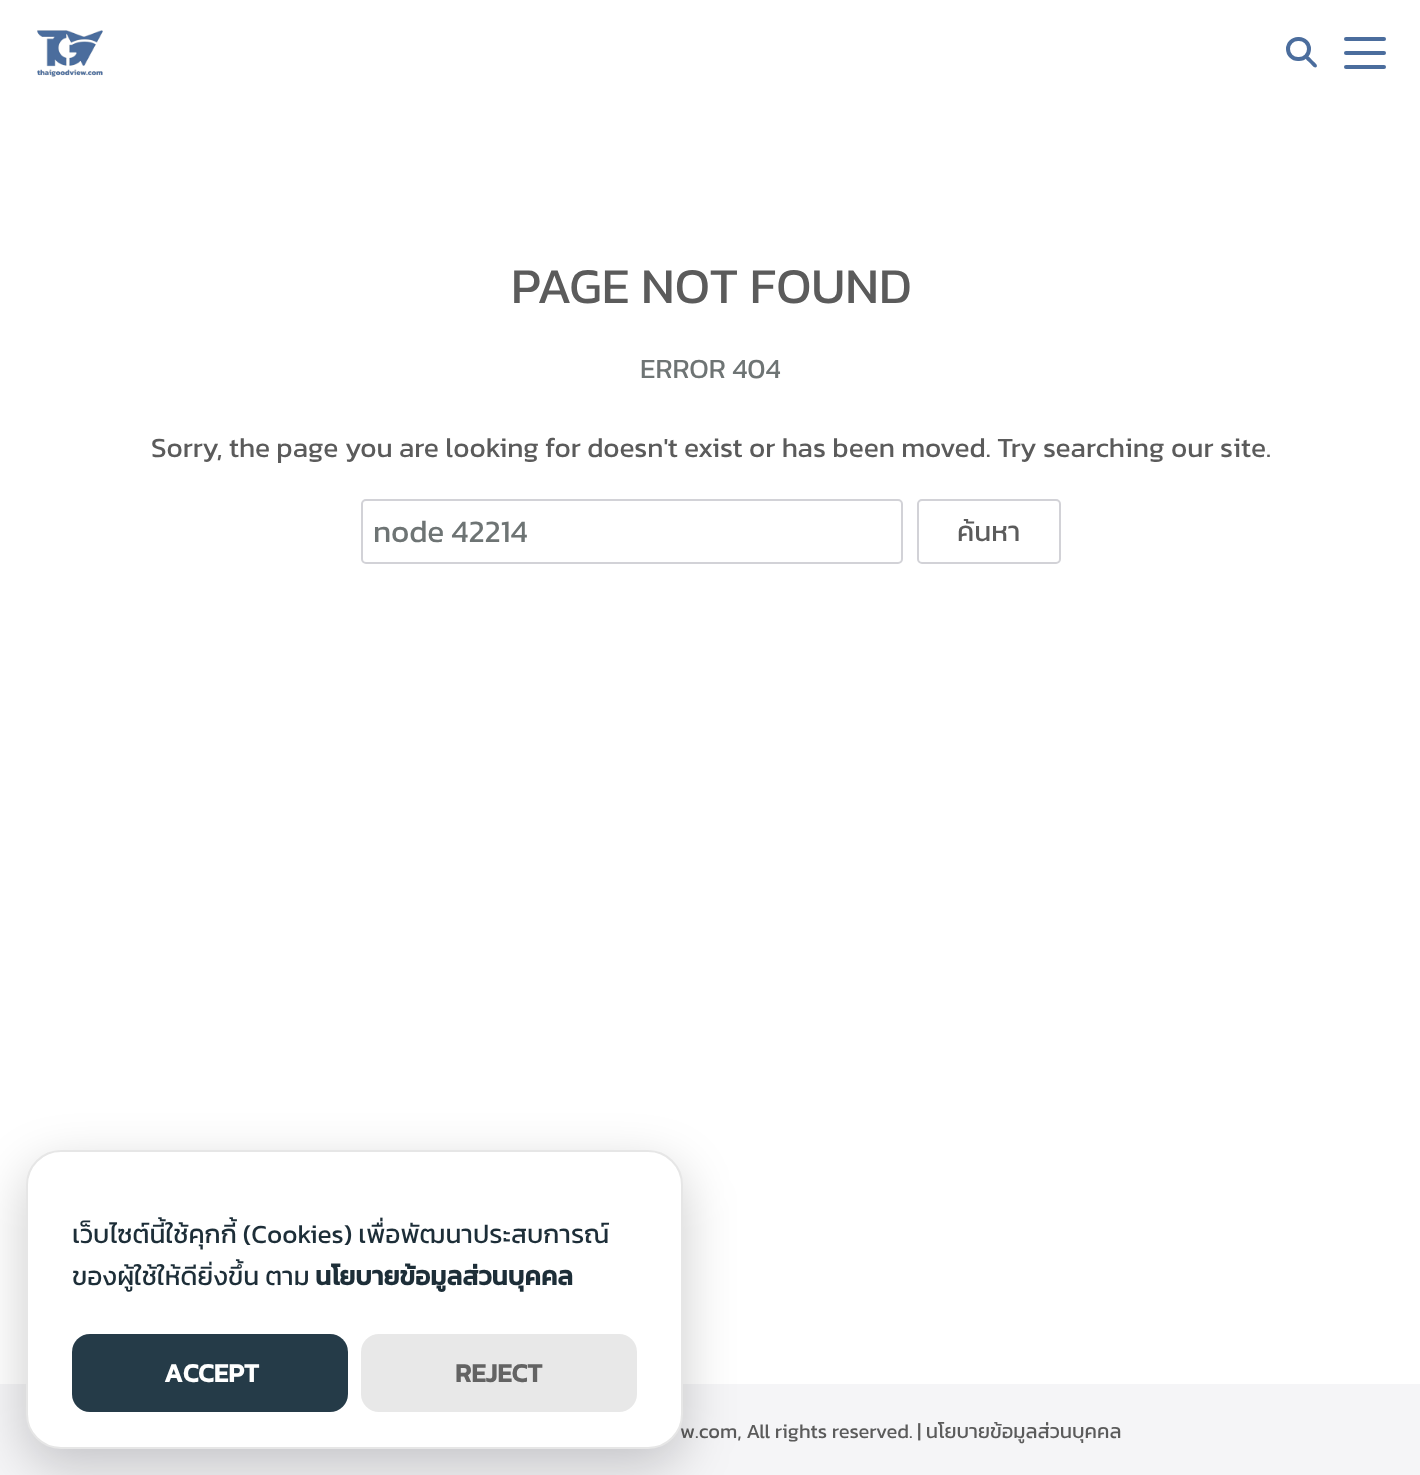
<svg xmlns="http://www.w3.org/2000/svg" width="1420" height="1475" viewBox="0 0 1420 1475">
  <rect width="100%" height="100%" fill="rgb(255,255,255)"/>
  <image x="37" y="30" width="66" height="47" href="pic1.png"/>
  <path d="M1306 56.5C1308 54.5 1311.5 59.5 1312.5 60.5C1313.5 61.5 1318.5 65 1316.5 67C1314.5 69 1311 64 1310 63C1309 62 1304 58.5 1306 56.5Z" fill="rgb(75,109,157)"/>
  <rect x="1288" y="39" width="21" height="20" rx="10" fill="none" stroke="rgb(75,109,157)" stroke-width="4"/>
  <rect x="1344" y="51" width="42" height="4" rx="2" fill="rgb(75,109,157)"/>
  <rect x="1344" y="37" width="42" height="4" rx="2" fill="rgb(75,109,157)"/>
  <rect x="1344" y="65" width="42" height="4" rx="2" fill="rgb(75,109,157)"/>
  <text x="511" y="303" font-family="Kanit" font-size="50.5" fill="rgb(91,91,91)">PAGE NOT FOUND</text>
  <text x="640" y="378" font-family="Kanit" font-size="28" fill="rgb(110,116,116)">ERROR 404</text>
  <text x="151" y="457" font-family="Kanit" font-size="28" fill="rgb(91,91,91)">Sorry, the page you are looking for doesn't exist or has been moved. Try searching our site.</text>
  <rect x="362" y="500" width="540" height="63" rx="4" fill="none" stroke="rgb(210,210,215)" stroke-width="2"/>
  <text x="373" y="542" font-family="Kanit" font-size="31.5" fill="rgb(110,116,116)">node 42214</text>
  <rect x="918" y="500" width="142" height="63" rx="4" fill="none" stroke="rgb(210,210,215)" stroke-width="2"/>
  <text x="957" y="541" font-family="Kanit" font-size="28" fill="rgb(91,91,91)">ค้นหา</text>
  <rect x="0" y="1384" width="1420" height="91" fill="rgb(245,245,247)"/>
  <text x="680" y="1438" font-family="Kanit" font-size="20.2" fill="rgb(91,91,91)">w.com, All rights reserved. | นโยบายข้อมูลส่วนบุคคล</text>
  <rect x="26" y="1167" width="657" height="300" rx="35" fill="rgba(2,2,3,0.2)" filter="blur(26px)"/>
  <rect x="27" y="1151" width="655" height="297" rx="34" fill="rgb(255,255,255)" stroke="rgb(230,230,230)" stroke-width="2"/>
  <g font-family="Kanit" font-size="26.25" fill="rgb(29,46,56)">
    <text>
      <tspan x="72" y="1243">เว็บไซต์นี้ใช้คุกกี้ (Cookies) เพื่อพัฒนาประสบการณ์</tspan>
      <tspan x="72" y="1285">ของผู้ใช้ให้ดียิ่งขึ้น ตาม</tspan>
    </text>
  </g>
  <text x="315" y="1285" font-family="Kanit" font-size="26.25" font-weight="bold" fill="rgb(29,46,56)">นโยบายข้อมูลส่วนบุคคล</text>
  <rect x="72" y="1334" width="276" height="78" rx="18" fill="rgb(37,59,72)"/>
  <text x="164" y="1382" font-family="Kanit" font-size="26.25" font-weight="bold" fill="rgb(255,255,255)">ACCEPT</text>
  <rect x="361" y="1334" width="276" height="78" rx="18" fill="rgb(232,232,232)"/>
  <text x="455" y="1382" font-family="Kanit" font-size="26.25" font-weight="bold" fill="rgb(99,99,99)">REJECT</text>
</svg>
